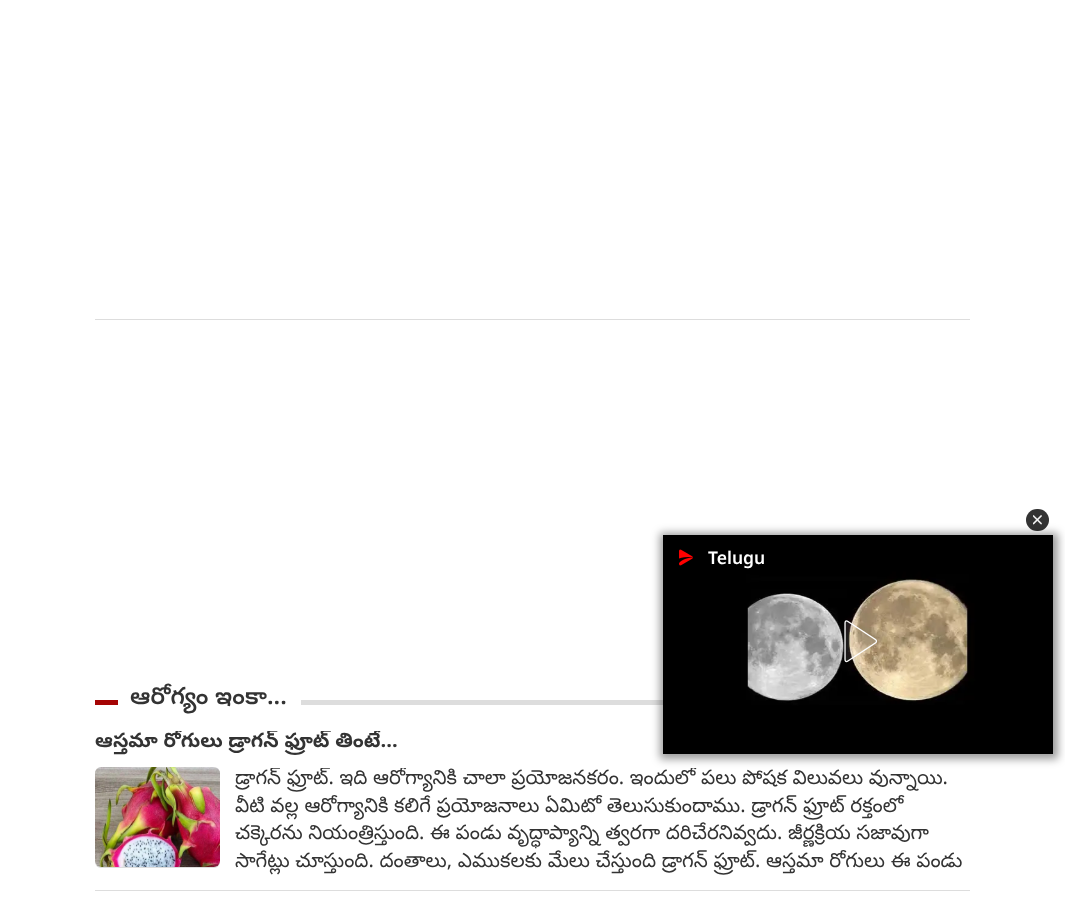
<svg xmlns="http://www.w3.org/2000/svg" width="1065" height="903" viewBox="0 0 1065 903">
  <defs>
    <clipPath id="clip1"><rect x="708" y="546" width="333" height="23"/></clipPath>
    <linearGradient id="g1" gradientUnits="userSpaceOnUse" x1="858" y1="535" x2="858" y2="585"><stop offset="0" stop-color="rgb(0,0,0)" stop-opacity="0.55"/><stop offset="1" stop-color="rgb(0,0,0)" stop-opacity="0"/></linearGradient>
    <clipPath id="clip2"><rect x="95" y="731" width="875" height="27"/></clipPath>
    <clipPath id="clip3"><rect x="220" y="768" width="750" height="110"/></clipPath>
  </defs>
  <rect width="100%" height="100%" fill="rgb(255,255,255)"/>
  <rect x="1026" y="509" width="23" height="22" rx="11" fill="rgb(51,51,51)"/>
  <image x="1033" y="515" width="9" height="10" href="pic1.png"/>
  <rect x="301" y="700" width="362" height="5" fill="rgb(221,221,221)"/>
  <rect x="660" y="533" width="398" height="226" fill="rgba(0,0,0,0.4)" filter="blur(4px)"/>
  <rect x="663" y="535" width="390" height="219" fill="rgb(0,0,0)"/>
  <image x="679" y="549" width="14" height="17" href="pic2.png"/>
  <image x="734" y="568" width="247" height="144" href="pic4.png"/>
  <g clip-path="url(#clip1)">
    <text x="708" y="564" font-family="Noto Sans" font-size="17.5" font-weight="600" fill="rgb(255,255,255)">Telugu</text>
  </g>
  <rect x="893" y="579" width="39" height="4" fill="url(#g1)"/>
  <image x="844" y="620" width="34" height="43" href="pic3.png"/>
  <rect x="95" y="319" width="875" height="1" fill="rgb(221,221,221)"/>
  <rect x="95" y="700" width="23" height="5" fill="rgb(165,4,4)"/>
  <text x="130" y="704" font-family="Noto Sans Telugu" font-size="23.75" font-weight="600" fill="rgb(51,51,51)">ఆరోగ్యం ఇంకా...</text>
  <rect x="95" y="890" width="875" height="1" fill="rgb(221,221,221)"/>
  <g clip-path="url(#clip2)">
    <text x="95" y="747" font-family="Noto Sans Telugu" font-size="20" font-weight="bold" fill="rgb(51,51,51)">ఆస్తమా రోగులు డ్రాగన్ ఫ్రూట్ తింటే...</text>
  </g>
  <rect x="95" y="768" width="125" height="100" rx="6" fill="rgb(221,221,221)"/>
  <image x="95" y="767" width="125" height="100" href="pic5.png"/>
  <g clip-path="url(#clip3)">
    <text x="235" y="784" font-family="Noto Sans Telugu" font-size="20" fill="rgb(51,51,51)">డ్రాగన్ ఫ్రూట్‌. ఇది ఆరోగ్యానికి చాలా ప్రయోజనకరం. ఇందులో పలు పోషక విలువలు వున్నాయి.</text>
  </g>
  <g font-family="Noto Sans Telugu" font-size="20" fill="rgb(51,51,51)">
    <text>
      <tspan x="235" y="812">వీటి వల్ల ఆరోగ్యానికి కలిగే ప్రయోజనాలు ఏమిటో తెలుసుకుందాము. డ్రాగన్ ఫ్రూట్ రక్తంలో</tspan>
      <tspan x="235" y="839">చక్కెరను నియంత్రిస్తుంది. ఈ పండు వృద్ధాప్యాన్ని త్వరగా దరిచేరనివ్వదు. జీర్ణక్రియ సజావుగా</tspan>
      <tspan x="235" y="867">సాగేట్లు చూస్తుంది. దంతాలు, ఎముకలకు మేలు చేస్తుంది డ్రాగన్ ఫ్రూట్. ఆస్తమా రోగులు ఈ పండు</tspan>
    </text>
  </g>
</svg>
